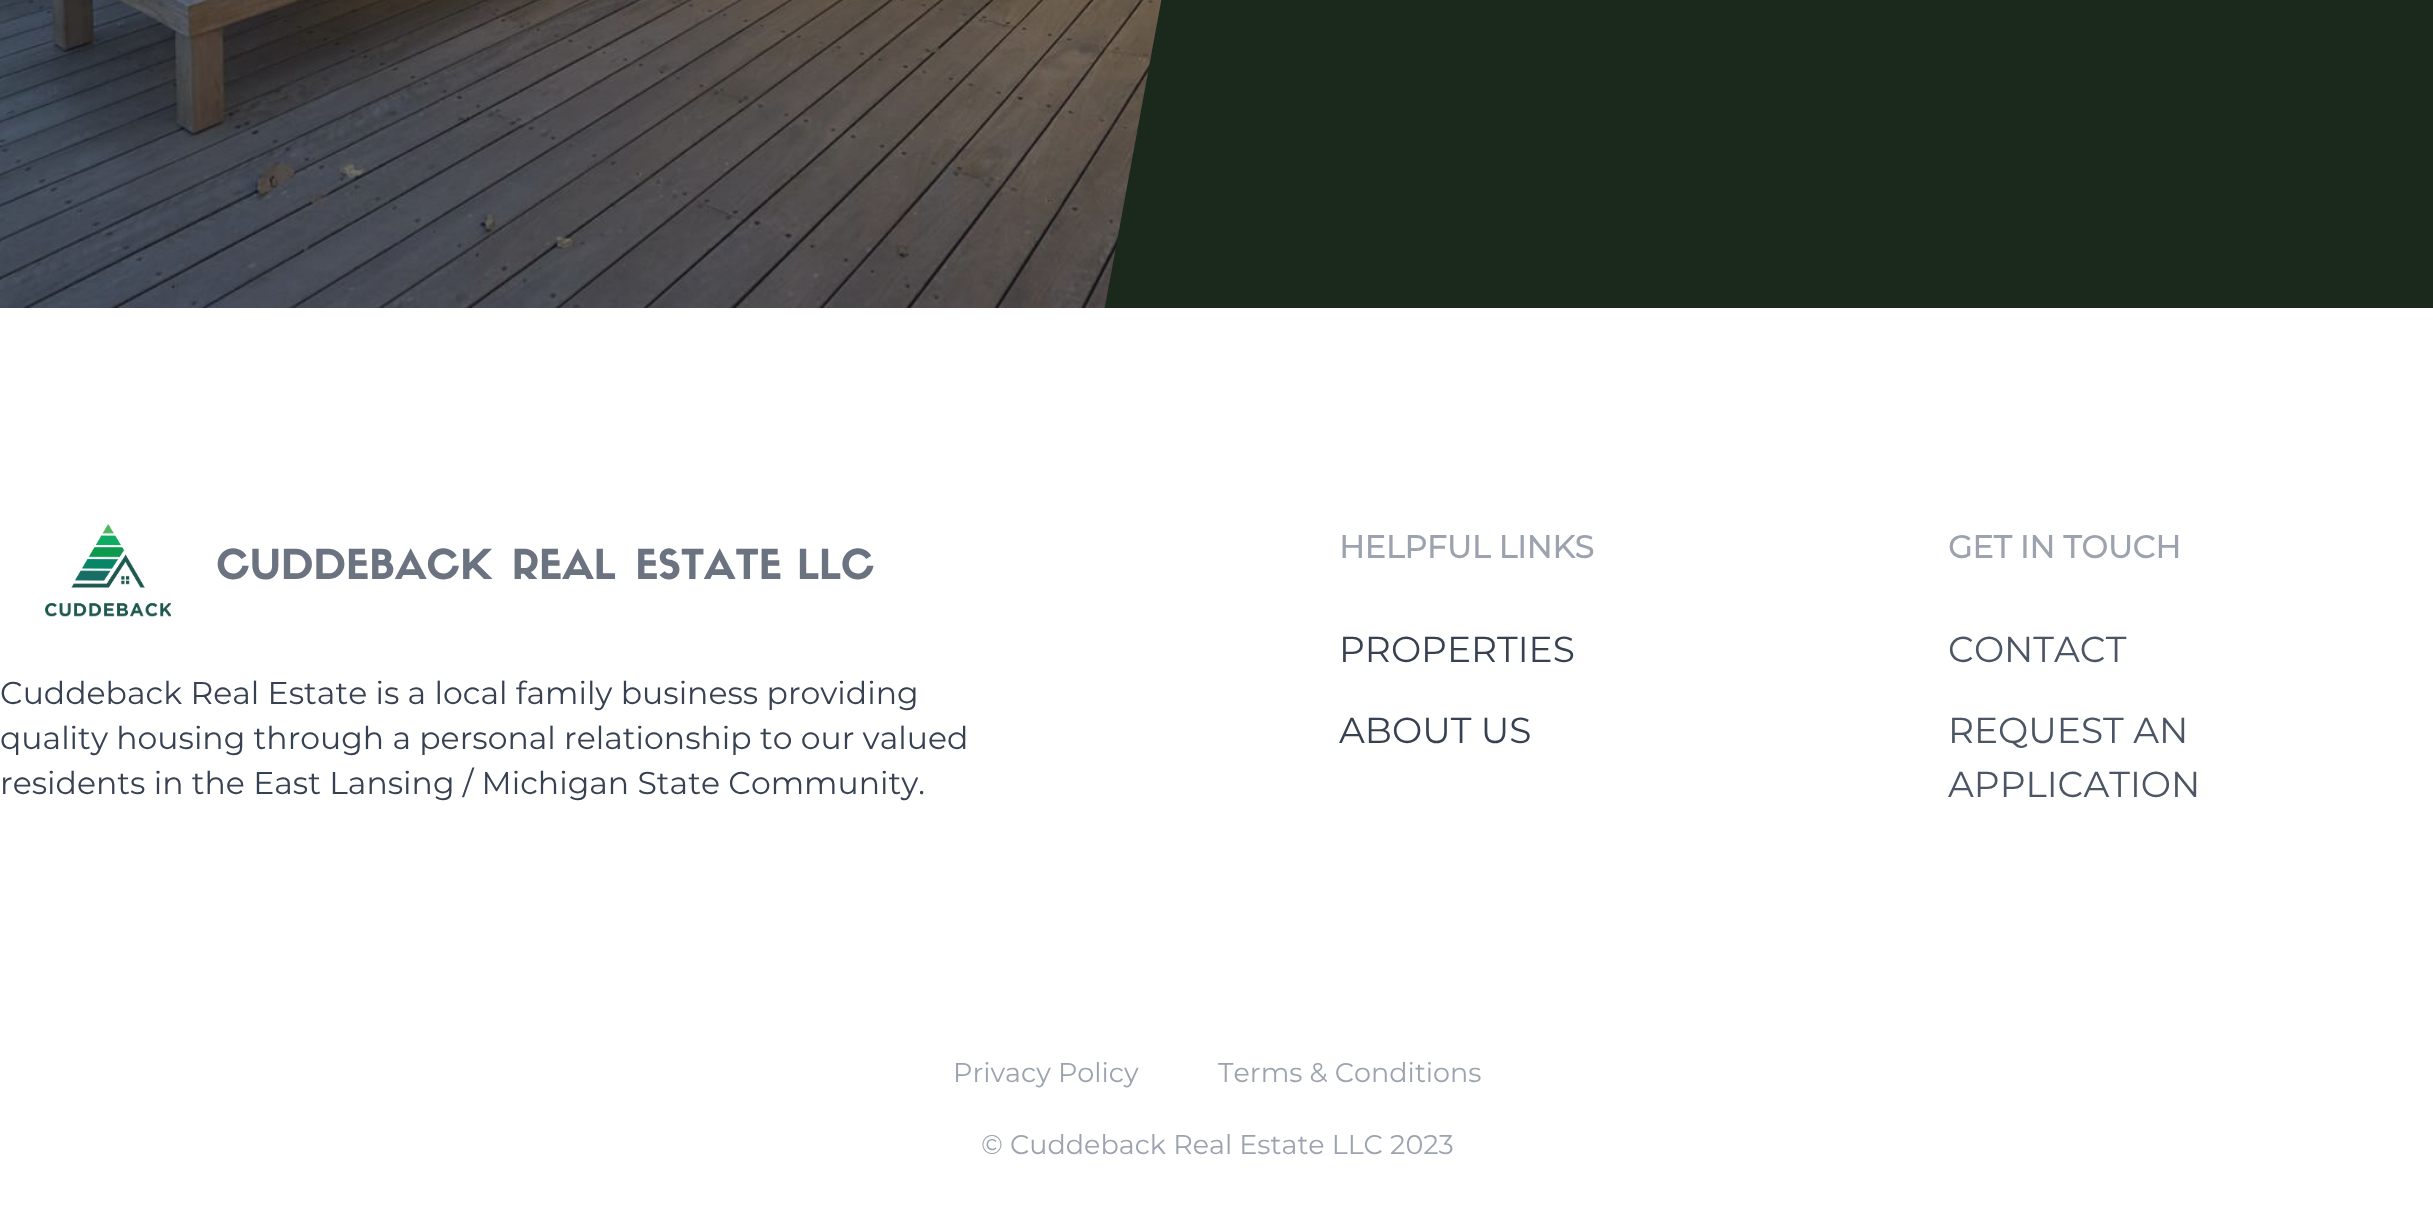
<svg xmlns="http://www.w3.org/2000/svg" width="2433" height="1221" viewBox="0 0 2433 1221">
  <style>*{font-kerning:none!important;font-variant-ligatures:none!important}</style>
  <rect width="100%" height="100%" fill="rgb(26,41,27)"/>
  <image x="0" y="0" width="1162" height="308" href="pic1.png"/>
  <path d="M0-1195V308H1105L1381-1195Z" fill="rgba(31,41,55,0.4)"/>
  <rect x="0" y="308" width="2433" height="913" fill="rgb(255,255,255)"/>
  <image x="45" y="524" width="126" height="93" href="pic2.png"/>
  <text x="216" y="579" word-spacing="2.5" font-family="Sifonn" font-size="40.5" font-weight="bold" fill="rgb(107,114,128)">CUDDEBACK REAL ESTATE</text>
  <text x="797" y="579" word-spacing="2.5" font-family="Sifonn" font-size="40.5" font-weight="bold" fill="rgb(107,114,128)">LLC</text>
  <g font-family="Montserrat" font-size="31.5" fill="rgb(55,65,81)">
    <text>
      <tspan x="0" y="704">Cuddeback Real Estate is a local family business providing</tspan>
      <tspan x="0" y="749">quality housing through a personal relationship to our valued</tspan>
      <tspan x="0" y="794">residents in the East Lansing / Michigan State Community.</tspan>
    </text>
  </g>
  <text x="1339" y="558" font-family="Montserrat" font-size="31.5" font-weight="bold" fill="rgb(156,163,175)">HELPFUL LINKS</text>
  <g font-family="Montserrat" font-size="36" fill="rgb(55,65,81)">
    <text x="1339" y="662">PROPERTIES</text>
    <text x="1339" y="743">ABOUT US</text>
  </g>
  <text x="1948" y="558" font-family="Montserrat" font-size="31.5" font-weight="bold" fill="rgb(156,163,175)">GET IN TOUCH</text>
  <g font-family="Montserrat" font-size="36" fill="rgb(75,85,99)">
    <text x="1948" y="662">CONTACT</text>
    <text>
      <tspan x="1948" y="743">REQUEST AN</tspan>
      <tspan x="1948" y="797">APPLICATION</tspan>
    </text>
  </g>
  <g font-family="Montserrat" font-size="27" fill="rgb(156,163,175)">
    <text x="953" y="1082">Privacy Policy</text>
    <text x="1218" y="1082">Terms &amp; Conditions</text>
    <text x="981" y="1154">© Cuddeback Real Estate LLC 2023</text>
  </g>
</svg>
